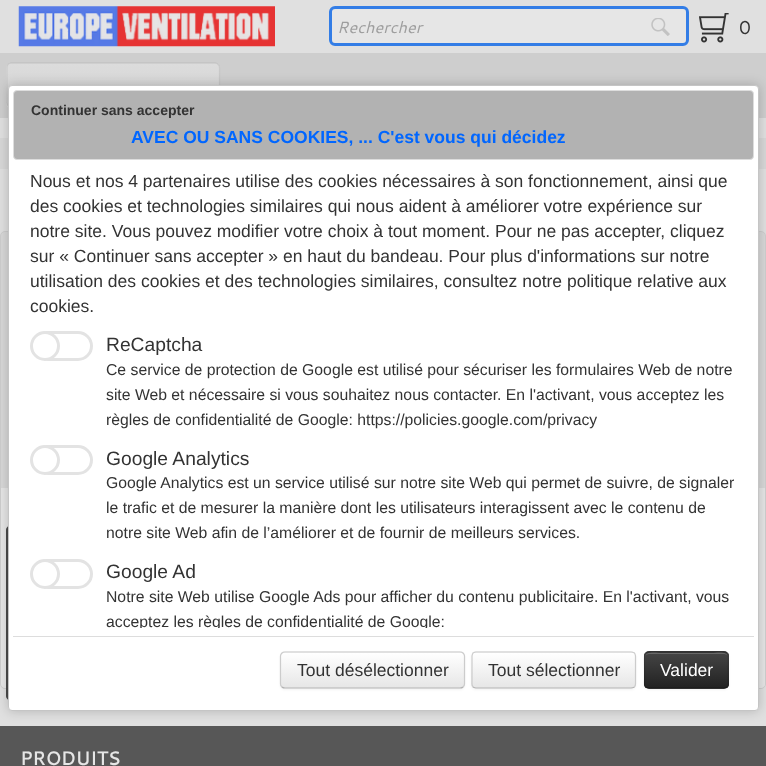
<svg xmlns="http://www.w3.org/2000/svg" width="766" height="766" viewBox="0 0 766 766">
  <defs>
    <clipPath id="clip1"><rect x="6" y="63" width="214" height="45" rx="5"/></clipPath>
    <linearGradient id="g1" gradientUnits="userSpaceOnUse" x1="113" y1="64" x2="113" y2="106"><stop offset="0" stop-color="rgb(220,220,220)"/><stop offset="1" stop-color="rgb(211,211,211)"/></linearGradient>
    <clipPath id="clip2"><rect x="13" y="160" width="741" height="468"/></clipPath>
    <clipPath id="clip3"><rect x="280" y="651" width="185" height="38" rx="5"/></clipPath>
    <linearGradient id="g2" gradientUnits="userSpaceOnUse" x1="373" y1="653" x2="373" y2="688"><stop offset="0" stop-color="rgb(255,255,255)"/><stop offset="1" stop-color="rgb(230,230,230)"/></linearGradient>
    <clipPath id="clip4"><rect x="471" y="651" width="165" height="38" rx="5"/></clipPath>
    <linearGradient id="g3" gradientUnits="userSpaceOnUse" x1="554" y1="653" x2="554" y2="688"><stop offset="0" stop-color="rgb(255,255,255)"/><stop offset="1" stop-color="rgb(230,230,230)"/></linearGradient>
    <clipPath id="clip5"><rect x="644" y="651" width="85" height="38" rx="5"/></clipPath>
    <linearGradient id="g4" gradientUnits="userSpaceOnUse" x1="686" y1="653" x2="686" y2="688"><stop offset="0" stop-color="rgb(68,68,68)"/><stop offset="1" stop-color="rgb(34,34,34)"/></linearGradient>
  </defs>
  <rect width="100%" height="100%" fill="rgb(224,224,224)"/>
  <image x="18" y="6" width="257" height="41" href="pic1.png"/>
  <rect x="329" y="6" width="360" height="40" rx="6" fill="rgb(230,230,230)"/>
  <image x="651" y="18" width="19" height="18" href="pic2.png"/>
  <rect x="330.5" y="7.5" width="357" height="37" rx="4.5" fill="none" stroke="rgb(51,125,230)" stroke-width="3"/>
  <text x="337" y="33" font-family="Cantarell" font-size="16.25" font-style="italic" fill="rgb(158,158,158)">Rechercher</text>
  <image x="699" y="13" width="30" height="30" href="pic3.png"/>
  <text x="739" y="34" font-family="Cantarell" font-size="18.75" fill="rgb(51,51,51)">0</text>
  <rect x="0" y="53" width="766" height="65" fill="rgb(206,206,206)"/>
  <rect x="6" y="63" width="214" height="45" rx="5" fill="rgb(217,217,217)"/>
  <g clip-path="url(#clip1)">
    <rect x="6" y="64" width="214" height="42" fill="url(#g1)"/>
  </g>
  <path d="M8 105.5C7.5 105 7 103.5 7 102.5V67.5C7 66.5 7.5 65 8 64.5C9 63.5 10 63 11 63H215C216 63 217.5 63.5 218 64.5C219 65 219.5 66.5 219.5 67.5V102.5C219.5 103.5 219 105 218 105.5" fill="none" stroke="rgba(51,51,51,0.1)" stroke-width="1.2"/>
  <rect x="0" y="138" width="766" height="31" fill="rgb(216,216,216)"/>
  <rect x="0.5" y="231.5" width="765" height="457" rx="4.5" fill="rgb(216,216,216)" stroke="rgb(206,206,206)"/>
  <path d="M1 488H765V684C765 686 763 688 761 688H5C3 688 1 686 1 684Z" fill="rgb(230,230,230)"/>
  <rect x="0" y="726" width="766" height="40" fill="rgb(87,87,87)"/>
  <text x="20" y="765" font-family="Cantarell" font-size="18.75" font-weight="bold" fill="rgb(230,230,230)">PRODUITS</text>
  <rect x="6.5" y="525.5" width="64" height="175" rx="4.5" fill="rgb(74,74,74)" stroke="rgb(74,74,74)"/>
  <rect x="8" y="85" width="751" height="626" rx="4" fill="rgba(0,0,0,0.2)" filter="blur(6px)"/>
  <rect x="8.5" y="85.5" width="750" height="625" rx="3.5" fill="rgb(255,255,255)" stroke="rgb(197,197,197)"/>
  <rect x="13.5" y="90.5" width="740" height="69" rx="3.5" fill="rgb(178,178,178)" stroke="rgb(221,221,221)"/>
  <text x="31" y="115" font-family="Liberation Sans" font-size="14" font-weight="bold" fill="rgb(51,51,51)">Continuer sans accepter</text>
  <text x="131" y="143" font-family="Liberation Sans" font-size="17.5" font-weight="bold" fill="rgb(0,102,255)">AVEC OU SANS COOKIES, ... C'est vous qui décidez</text>
  <g font-family="Liberation Sans" font-size="17.5" fill="rgb(51,51,51)">
    <text>
      <tspan x="30" y="187">Nous et nos 4 partenaires utilise des cookies nécessaires à son fonctionnement, ainsi que</tspan>
      <tspan x="30" y="212">des cookies et technologies similaires qui nous aident à améliorer votre expérience sur</tspan>
      <tspan x="30" y="237">notre site. Vous pouvez modifier votre choix à tout moment. Pour ne pas accepter, cliquez</tspan>
      <tspan x="30" y="262">sur « Continuer sans accepter » en haut du bandeau. Pour plus d'informations sur notre</tspan>
      <tspan x="30" y="287">utilisation des cookies et des technologies similaires, consultez notre politique relative aux</tspan>
      <tspan x="30" y="312">cookies.</tspan>
    </text>
  </g>
  <rect x="34.5" y="332.5" width="57" height="27" rx="13.5" fill="none" stroke="rgb(227,227,227)" stroke-width="3"/>
  <circle cx="45" cy="346" r="13.5" fill="rgb(255,255,255)" stroke="rgb(227,227,227)" stroke-width="3"/>
  <text x="106" y="351" font-family="Liberation Sans" font-size="19.25" fill="rgb(51,51,51)">ReCaptcha</text>
  <g font-family="Liberation Sans" font-size="15.75" fill="rgb(51,51,51)">
    <text>
      <tspan x="106" y="375">Ce service de protection de Google est utilisé pour sécuriser les formulaires Web de notre</tspan>
      <tspan x="106" y="400">site Web et nécessaire si vous souhaitez nous contacter. En l'activant, vous acceptez les</tspan>
      <tspan x="106" y="425">règles de confidentialité de Google: https://policies.google.com/privacy</tspan>
    </text>
  </g>
  <rect x="34.5" y="446.5" width="57" height="27" rx="13.5" fill="none" stroke="rgb(227,227,227)" stroke-width="3"/>
  <circle cx="45" cy="460" r="13.5" fill="rgb(255,255,255)" stroke="rgb(227,227,227)" stroke-width="3"/>
  <text x="106" y="465" font-family="Liberation Sans" font-size="19.25" fill="rgb(51,51,51)">Google Analytics</text>
  <g font-family="Liberation Sans" font-size="15.75" fill="rgb(51,51,51)">
    <text>
      <tspan x="106" y="488">Google Analytics est un service utilisé sur notre site Web qui permet de suivre, de signaler</tspan>
      <tspan x="106" y="513">le trafic et de mesurer la manière dont les utilisateurs interagissent avec le contenu de</tspan>
      <tspan x="106" y="538">notre site Web afin de l’améliorer et de fournir de meilleurs services.</tspan>
    </text>
  </g>
  <rect x="34.5" y="560.5" width="57" height="27" rx="13.5" fill="none" stroke="rgb(227,227,227)" stroke-width="3"/>
  <circle cx="45" cy="574" r="13.5" fill="rgb(255,255,255)" stroke="rgb(227,227,227)" stroke-width="3"/>
  <text x="106" y="578" font-family="Liberation Sans" font-size="19.25" fill="rgb(51,51,51)">Google Ad</text>
  <text x="106" y="602" font-family="Liberation Sans" font-size="15.75" fill="rgb(51,51,51)">Notre site Web utilise Google Ads pour afficher du contenu publicitaire. En l'activant, vous</text>
  <g clip-path="url(#clip2)">
    <text x="106" y="627" font-family="Liberation Sans" font-size="15.75" fill="rgb(51,51,51)">acceptez les règles de confidentialité de Google:</text>
  </g>
  <rect x="13" y="636" width="741" height="1" fill="rgb(221,221,221)"/>
  <rect x="280" y="653" width="185" height="37" rx="5" fill="rgba(0,0,0,0.05)" filter="blur(1px)"/>
  <rect x="280" y="651" width="185" height="38" rx="5" fill="rgb(245,245,245)"/>
  <g clip-path="url(#clip3)">
    <rect x="280" y="653" width="185" height="35" fill="url(#g2)"/>
  </g>
  <path d="M463 687C462.5 687.5 461 688 460 688H285C284 688 282.5 687.5 282 687" fill="none" stroke="rgb(179,179,179)" stroke-width="1.2"/>
  <path d="M282 687C281 686 280.5 685 280.5 684V656C280.5 655 281 654 282 653C282.5 652.5 284 652 285 652H460C461 652 462.5 652.5 463 653C464 654 464.5 655 464.5 656V684C464.5 685 464 686 463 687" fill="none" stroke="rgb(204,204,204)" stroke-width="1.2"/>
  <text x="297" y="676" font-family="Liberation Sans" font-size="17.5" fill="rgb(51,51,51)">Tout désélectionner</text>
  <rect x="471" y="653" width="165" height="37" rx="5" fill="rgba(0,0,0,0.05)" filter="blur(1px)"/>
  <rect x="471" y="651" width="165" height="38" rx="5" fill="rgb(245,245,245)"/>
  <g clip-path="url(#clip4)">
    <rect x="471" y="653" width="165" height="35" fill="url(#g3)"/>
  </g>
  <path d="M634.5 687C633.5 687.5 632.5 688 631 688H476C475 688 474 687.5 473 687" fill="none" stroke="rgb(179,179,179)" stroke-width="1.2"/>
  <path d="M473 687C472.5 686 472 685 472 684V656C472 655 472.5 654 473 653C474 652.5 475 652 476 652H631C632.5 652 633.5 652.5 634.5 653C635 654 635.5 655 635.5 656V684C635.5 685 635 686 634.5 687" fill="none" stroke="rgb(204,204,204)" stroke-width="1.2"/>
  <text x="488" y="676" font-family="Liberation Sans" font-size="17.5" fill="rgb(51,51,51)">Tout sélectionner</text>
  <rect x="644" y="653" width="85" height="37" rx="5" fill="rgba(0,0,0,0.05)" filter="blur(1px)"/>
  <rect x="644" y="651" width="85" height="38" rx="5" fill="rgb(54,54,54)"/>
  <g clip-path="url(#clip5)">
    <rect x="644" y="653" width="85" height="35" fill="url(#g4)"/>
  </g>
  <path d="M649 654H724C726 654 728 655 728 658C728 650 716 653 712 653H662C657 653 645 650 645 658C645 655 647 654 649 654Z" fill="rgba(255,255,255,0.2)"/>
  <path d="M727 687L724 688H648.5L645.5 687" fill="none" stroke="rgba(0,0,0,0.25)" stroke-width="1.2"/>
  <path d="M645.5 687C643.5 685 644.5 681.5 644.5 679V670C644.5 650 641 652 661 652H711C731.5 652 728 650 728 670V679C728 681.5 729 685 727 687" fill="none" stroke="rgba(0,0,0,0.1)" stroke-width="1.2"/>
  <text x="660" y="676" font-family="Liberation Sans" font-size="17.5" fill="rgb(255,255,255)">Valider</text>
</svg>
